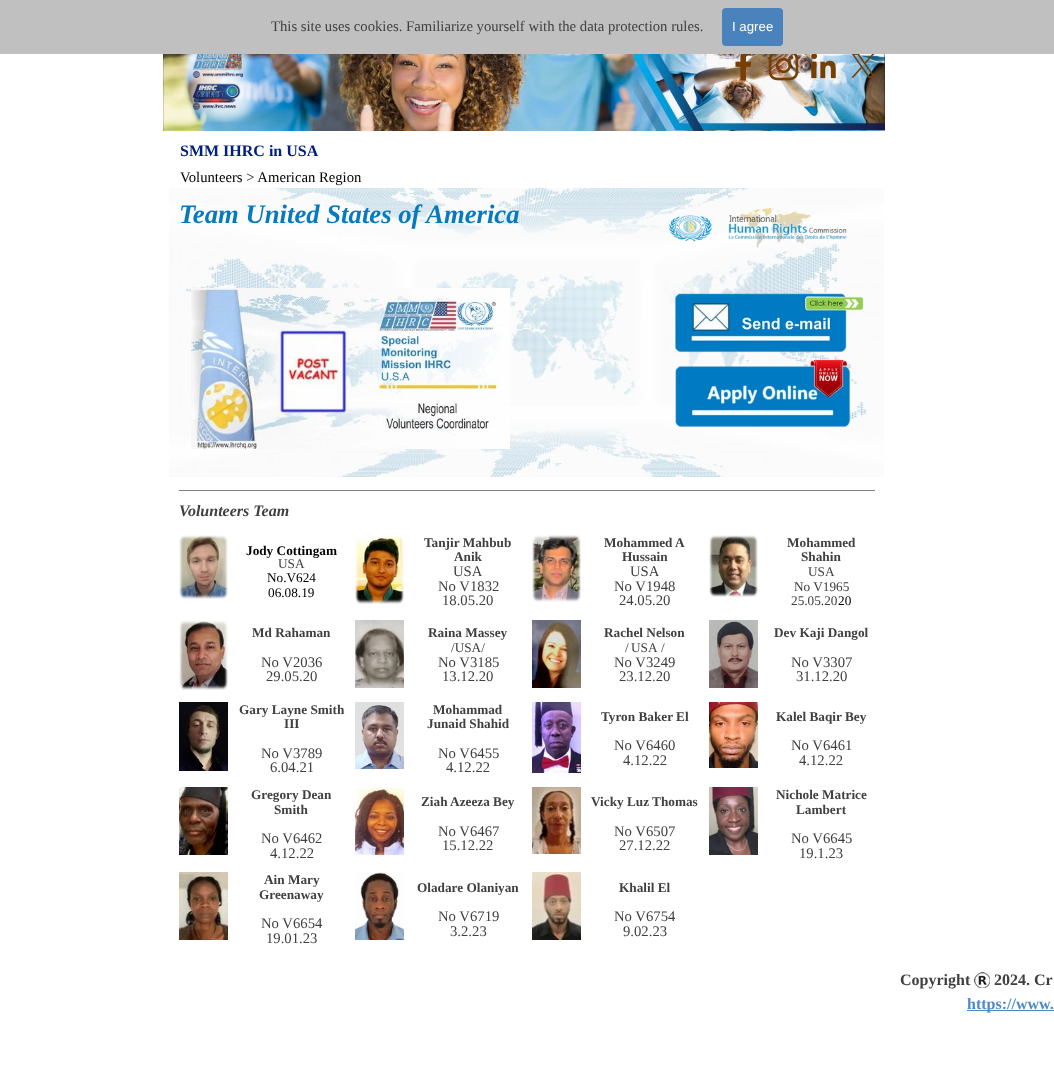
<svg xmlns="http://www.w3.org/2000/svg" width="1054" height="1089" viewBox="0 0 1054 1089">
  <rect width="100%" height="100%" fill="rgb(255,255,255)"/>
  <rect x="0" y="0" width="1054" height="54" fill="rgb(192,192,192)"/>
  <text x="271" y="31" font-family="Liberation Serif" font-size="14.7" fill="rgb(64,64,64)">This site uses cookies. Familiarize yourself with the data protection rules.</text>
  <rect x="722" y="8" width="61" height="38" rx="4" fill="rgb(74,130,187)"/>
  <text x="732" y="31" font-family="Liberation Sans" font-size="13.25" fill="rgb(255,255,255)">I agree</text>
  <image x="163" y="54" width="722" height="77" href="pic1.png"/>
  <image x="180" y="54" width="79" height="69" href="pic2.png"/>
  <image x="735" y="54" width="17" height="27" href="pic3.png"/>
  <image x="768" y="54" width="31" height="27" href="pic4.png"/>
  <image x="811" y="54" width="25" height="25" href="pic5.png"/>
  <image x="851" y="54" width="25" height="24" href="pic6.png"/>
  <text x="180" y="156" font-family="Liberation Serif" font-size="16" font-weight="bold" fill="rgb(0,32,128)">SMM IHRC in USA</text>
  <text x="180" y="182" font-family="Liberation Serif" font-size="14.7" fill="rgb(0,0,0)">Volunteers &gt; American Region</text>
  <image x="169" y="188" width="715" height="289" href="pic7.png"/>
  <text x="179" y="223" font-family="Liberation Serif" font-size="26.7" font-weight="bold" font-style="italic" fill="rgb(5,122,191)">Team United States of America</text>
  <image x="669" y="208" width="178" height="40" href="pic8.png"/>
  <image x="191" y="288" width="319" height="161" href="pic9.png"/>
  <image x="675" y="293" width="188" height="60" href="pic10.png"/>
  <image x="675" y="360" width="176" height="68" href="pic11.png"/>
  <rect x="179" y="490" width="696" height="1" fill="rgb(128,128,128)"/>
  <text x="179" y="516" font-family="Liberation Serif" font-size="16" font-weight="bold" font-style="italic" fill="rgb(64,64,64)">Volunteers Team</text>
  <image x="179" y="535" width="49" height="64" href="pic12.png"/>
  <text x="246" y="555" font-family="Liberation Serif" font-size="13.25" font-weight="bold" fill="rgb(0,0,0)">Jody Cottingam</text>
  <text x="278" y="568" font-family="Liberation Serif" font-size="13.25" fill="rgb(64,64,64)">USA</text>
  <g font-family="Liberation Serif" font-size="13.25" fill="rgb(0,0,0)">
    <text x="267" y="582">No.V624</text>
    <text x="268" y="597">06.08.19</text>
  </g>
  <image x="355" y="535" width="49" height="69" href="pic13.png"/>
  <g font-family="Liberation Serif" font-size="13.25" font-weight="bold" fill="rgb(64,64,64)">
    <text x="424" y="547">Tanjir Mahbub</text>
    <text x="454" y="561">Anik</text>
  </g>
  <g font-family="Liberation Serif" font-size="14.7" fill="rgb(64,64,64)">
    <text x="453" y="576">USA</text>
    <text x="438" y="591">No V1832</text>
    <text x="442" y="605">18.05.20</text>
  </g>
  <image x="532" y="535" width="49" height="67" href="pic14.png"/>
  <g font-family="Liberation Serif" font-size="13.25" font-weight="bold" fill="rgb(64,64,64)">
    <text x="604" y="547">Mohammed A</text>
    <text x="622" y="561">Hussain</text>
  </g>
  <g font-family="Liberation Serif" font-size="14.7" fill="rgb(64,64,64)">
    <text x="630" y="576">USA</text>
    <text x="614" y="591">No V1948</text>
    <text x="619" y="605">24.05.20</text>
  </g>
  <image x="709" y="535" width="49" height="62" href="pic15.png"/>
  <g font-family="Liberation Serif" font-size="13.25" font-weight="bold" fill="rgb(64,64,64)">
    <text x="787" y="547">Mohammed</text>
    <text x="801" y="561">Shahin</text>
  </g>
  <g font-family="Liberation Serif" font-size="13.25" fill="rgb(64,64,64)">
    <text x="808" y="576">USA</text>
    <text x="794" y="591">No V1965</text>
    <text x="791" y="605">25.05.20</text>
  </g>
  <text x="838" y="605" font-family="Liberation Serif" font-size="13.25" fill="rgb(0,0,0)">20</text>
  <image x="179" y="620" width="49" height="70" href="pic16.png"/>
  <text x="252" y="637" font-family="Liberation Serif" font-size="13.25" font-weight="bold" fill="rgb(64,64,64)">Md Rahaman</text>
  <g font-family="Liberation Serif" font-size="14.7" fill="rgb(64,64,64)">
    <text x="261" y="667">No V2036</text>
    <text x="266" y="681">29.05.20</text>
  </g>
  <image x="355" y="620" width="49" height="68" href="pic17.png"/>
  <text x="428" y="637" font-family="Liberation Serif" font-size="13.25" font-weight="bold" fill="rgb(64,64,64)">Raina Massey</text>
  <text x="451" y="652" font-family="Liberation Serif" font-size="13.25" fill="rgb(64,64,64)">/USA/</text>
  <g font-family="Liberation Serif" font-size="14.7" fill="rgb(64,64,64)">
    <text x="438" y="667">No V3185</text>
    <text x="442" y="681">13.12.20</text>
  </g>
  <image x="532" y="620" width="49" height="68" href="pic18.png"/>
  <text x="604" y="637" font-family="Liberation Serif" font-size="13.25" font-weight="bold" fill="rgb(64,64,64)">Rachel Nelson</text>
  <g font-family="Liberation Serif" font-size="13.25" fill="rgb(64,64,64)">
    <text x="625" y="652" word-spacing="-1">/ USA</text>
    <text x="661" y="652">/</text>
  </g>
  <g font-family="Liberation Serif" font-size="14.7" fill="rgb(64,64,64)">
    <text x="614" y="667">No V3249</text>
    <text x="619" y="681">23.12.20</text>
  </g>
  <image x="709" y="620" width="49" height="68" href="pic19.png"/>
  <text x="774" y="637" font-family="Liberation Serif" font-size="13.25" font-weight="bold" fill="rgb(64,64,64)">Dev Kaji Dangol</text>
  <g font-family="Liberation Serif" font-size="14.7" fill="rgb(64,64,64)">
    <text x="791" y="667">No V3307</text>
    <text x="796" y="681">31.12.20</text>
  </g>
  <image x="179" y="702" width="49" height="69" href="pic20.png"/>
  <g font-family="Liberation Serif" font-size="13.25" font-weight="bold" fill="rgb(64,64,64)">
    <text x="239" y="714">Gary Layne Smith</text>
    <text x="284" y="728">III</text>
  </g>
  <g font-family="Liberation Serif" font-size="14.7" fill="rgb(64,64,64)">
    <text x="261" y="758">No V3789</text>
    <text x="270" y="772">6.04.21</text>
  </g>
  <image x="355" y="702" width="49" height="67" href="pic21.png"/>
  <g font-family="Liberation Serif" font-size="13.25" font-weight="bold" fill="rgb(64,64,64)">
    <text x="433" y="714">Mohammad</text>
    <text x="427" y="728">Junaid Shahid</text>
  </g>
  <g font-family="Liberation Serif" font-size="14.7" fill="rgb(64,64,64)">
    <text x="438" y="758">No V6455</text>
    <text x="446" y="772">4.12.22</text>
  </g>
  <image x="532" y="702" width="49" height="71" href="pic22.png"/>
  <text x="601" y="721" font-family="Liberation Serif" font-size="13.25" font-weight="bold" fill="rgb(64,64,64)">Tyron Baker El</text>
  <g font-family="Liberation Serif" font-size="14.7" fill="rgb(64,64,64)">
    <text x="614" y="750">No V6460</text>
    <text x="623" y="765">4.12.22</text>
  </g>
  <image x="709" y="702" width="49" height="66" href="pic23.png"/>
  <text x="776" y="721" font-family="Liberation Serif" font-size="13.25" font-weight="bold" fill="rgb(64,64,64)">Kalel Baqir Bey</text>
  <g font-family="Liberation Serif" font-size="14.7" fill="rgb(64,64,64)">
    <text x="791" y="750">No V6461</text>
    <text x="799" y="765">4.12.22</text>
  </g>
  <image x="179" y="787" width="49" height="68" href="pic24.png"/>
  <g font-family="Liberation Serif" font-size="13.25" font-weight="bold" fill="rgb(64,64,64)">
    <text x="251" y="799">Gregory Dean</text>
    <text x="274" y="814">Smith</text>
  </g>
  <g font-family="Liberation Serif" font-size="14.7" fill="rgb(64,64,64)">
    <text x="261" y="843">No V6462</text>
    <text x="270" y="858">4.12.22</text>
  </g>
  <image x="355" y="787" width="49" height="68" href="pic25.png"/>
  <text x="421" y="806" font-family="Liberation Serif" font-size="13.25" font-weight="bold" fill="rgb(64,64,64)">Ziah Azeeza Bey</text>
  <g font-family="Liberation Serif" font-size="14.7" fill="rgb(64,64,64)">
    <text x="438" y="836">No V6467</text>
    <text x="442" y="850">15.12.22</text>
  </g>
  <image x="532" y="787" width="49" height="67" href="pic26.png"/>
  <text x="591" y="806" font-family="Liberation Serif" font-size="13.25" font-weight="bold" fill="rgb(64,64,64)">Vicky Luz Thomas</text>
  <g font-family="Liberation Serif" font-size="14.7" fill="rgb(64,64,64)">
    <text x="614" y="836">No V6507</text>
    <text x="619" y="850">27.12.22</text>
  </g>
  <image x="709" y="787" width="49" height="68" href="pic27.png"/>
  <g font-family="Liberation Serif" font-size="13.25" font-weight="bold" fill="rgb(64,64,64)">
    <text x="776" y="799">Nichole Matrice</text>
    <text x="796" y="814">Lambert</text>
  </g>
  <g font-family="Liberation Serif" font-size="14.7" fill="rgb(64,64,64)">
    <text x="791" y="843">No V6645</text>
    <text x="799" y="858">19.1.23</text>
  </g>
  <image x="179" y="872" width="49" height="68" href="pic28.png"/>
  <g font-family="Liberation Serif" font-size="13.25" font-weight="bold" fill="rgb(64,64,64)">
    <text x="264" y="884">Ain Mary</text>
    <text x="259" y="899">Greenaway</text>
  </g>
  <g font-family="Liberation Serif" font-size="14.7" fill="rgb(64,64,64)">
    <text x="261" y="928">No V6654</text>
    <text x="266" y="943">19.01.23</text>
  </g>
  <image x="355" y="872" width="49" height="68" href="pic29.png"/>
  <text x="417" y="892" font-family="Liberation Serif" font-size="13.25" font-weight="bold" fill="rgb(64,64,64)">Oladare Olaniyan</text>
  <g font-family="Liberation Serif" font-size="14.7" fill="rgb(64,64,64)">
    <text x="438" y="921">No V6719</text>
    <text x="450" y="936">3.2.23</text>
  </g>
  <image x="532" y="872" width="49" height="68" href="pic30.png"/>
  <text x="619" y="892" font-family="Liberation Serif" font-size="13.25" font-weight="bold" fill="rgb(64,64,64)">Khalil El</text>
  <g font-family="Liberation Serif" font-size="14.7" fill="rgb(64,64,64)">
    <text x="614" y="921">No V6754</text>
    <text x="623" y="936">9.02.23</text>
  </g>
  <text x="900" y="985" font-family="Liberation Serif" font-size="16" font-weight="bold" fill="rgb(64,64,64)">Copyright</text>
  <image x="974" y="972" width="16" height="16" href="pic31.png"/>
  <text x="994" y="985" font-family="Liberation Serif" font-size="16" font-weight="bold" fill="rgb(64,64,64)">2024. Cr</text>
  <rect x="967" y="1010" width="87" height="1" fill="rgb(79,138,199)"/>
  <text x="967" y="1009" font-family="Liberation Serif" font-size="16" font-weight="bold" fill="rgb(79,138,199)">https://www.</text>
</svg>
